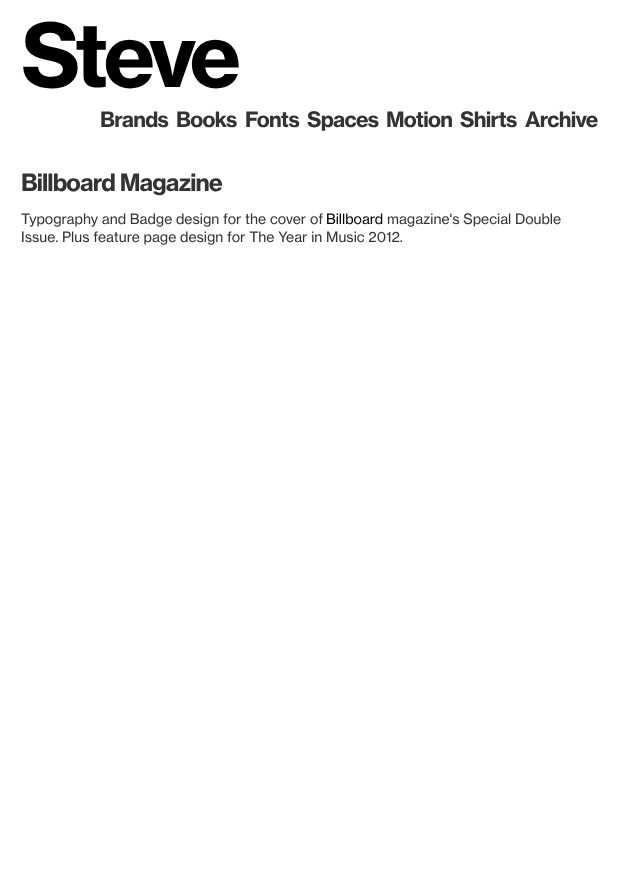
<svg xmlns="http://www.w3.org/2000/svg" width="618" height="890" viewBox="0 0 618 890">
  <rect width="100%" height="100%" fill="rgb(255,255,255)"/>
  <text x="21" y="87" font-family="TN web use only" font-size="86.5" font-weight="bold" letter-spacing="-5" fill="rgb(0,0,0)">Steve</text>
  <g font-family="TN web use only" font-size="21" font-weight="bold" letter-spacing="-0.75" fill="rgb(51,51,51)">
    <text x="100" y="127">Brands</text>
    <text x="176" y="127">Books</text>
    <text x="245" y="127">Fonts</text>
    <text x="307" y="127">Spaces</text>
    <text x="386" y="127">Motion</text>
    <text x="460" y="127">Shirts</text>
    <text x="525" y="127">Archive</text>
  </g>
  <text x="21" y="191" font-family="TN web use only" font-size="23.5" font-weight="bold" letter-spacing="-0.9" fill="rgb(51,51,51)">Billboard Magazine</text>
  <text x="21" y="224" font-family="TN web use only" font-size="14.05" fill="rgb(51,51,51)">Typography and Badge design for the cover of</text>
  <text x="326" y="224" font-family="TN web use only" font-size="14.05" fill="rgb(0,0,0)">Billboard</text>
  <g font-family="TN web use only" font-size="14.05" fill="rgb(51,51,51)">
    <text x="387" y="224">magazine's Special Double</text>
    <text x="21" y="242">Issue. Plus feature page design for The Year in Music 2012.</text>
  </g>
</svg>
